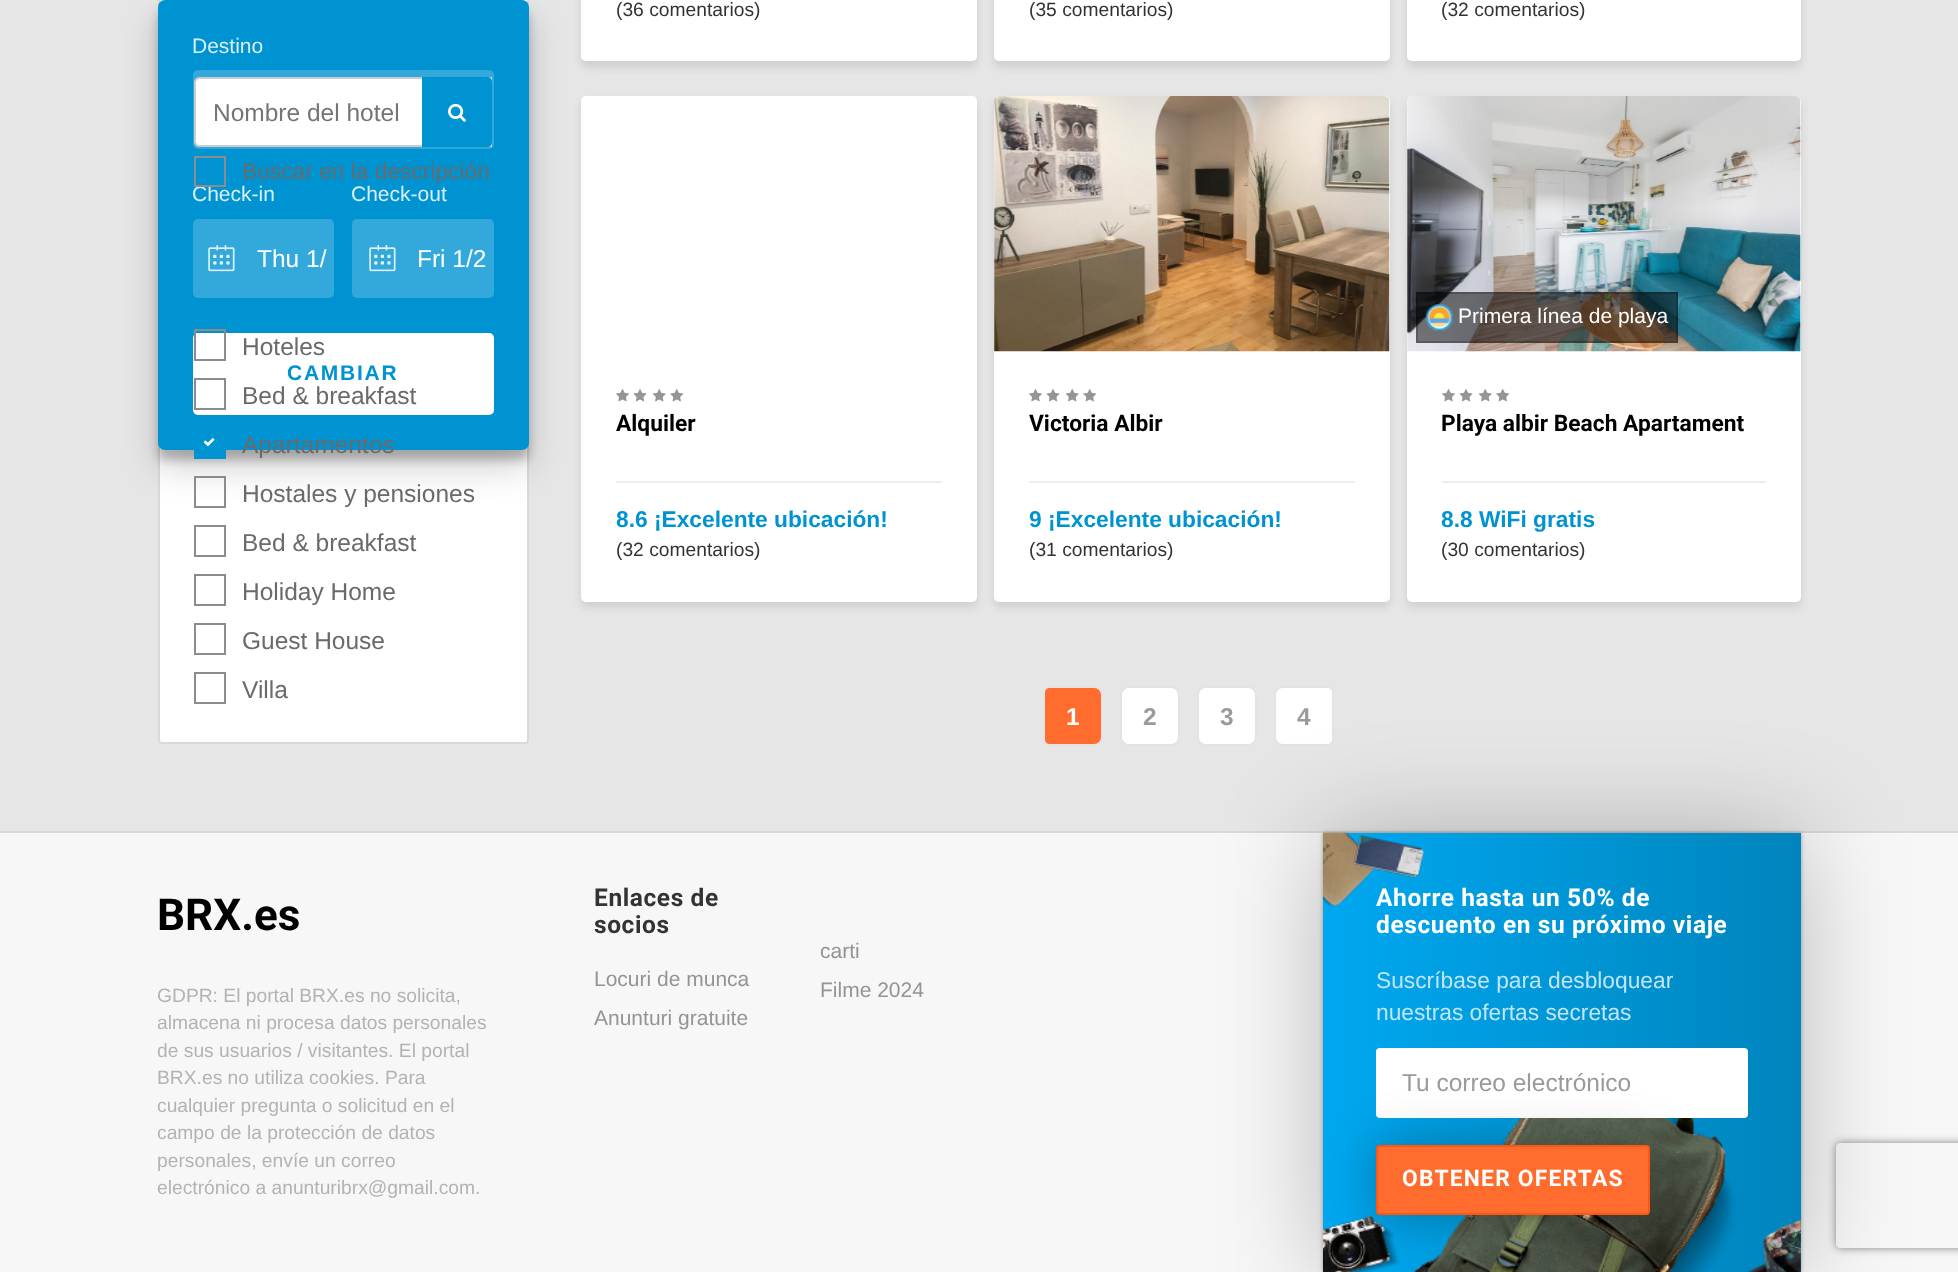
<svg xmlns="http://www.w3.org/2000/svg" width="1958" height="1272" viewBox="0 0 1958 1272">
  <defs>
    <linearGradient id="g1" gradientUnits="userSpaceOnUse" x1="1323" y1="1053" x2="1801" y2="1053"><stop offset="0" stop-color="rgb(0,168,240)"/><stop offset="1" stop-color="rgb(0,132,189)"/></linearGradient>
    <clipPath id="clip1"><path d="M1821 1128H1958V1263H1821ZM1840 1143H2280C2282 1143 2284 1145 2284 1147V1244C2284 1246 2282 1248 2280 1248H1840C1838 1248 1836 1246 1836 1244V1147C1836 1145 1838 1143 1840 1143Z" clip-rule="evenodd"/></clipPath>
  </defs>
  <rect width="100%" height="100%" fill="rgb(230,230,230)"/>
  <rect x="159" y="-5" width="369" height="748" rx="3" fill="rgb(255,255,255)" stroke="rgb(217,217,217)" stroke-width="2"/>
  <rect x="158" y="11" width="371" height="449" rx="7" fill="rgba(0,0,0,0.23)" filter="blur(5px)"/>
  <rect x="158" y="18" width="371" height="449" rx="7" fill="rgba(0,0,0,0.19)" filter="blur(17.5px)"/>
  <rect x="158" y="0" width="371" height="450" rx="7" fill="rgb(0,147,210)"/>
  <text x="192" y="53" font-family="Liberation Sans" font-size="21" fill="rgb(217,239,248)">Destino</text>
  <rect x="193" y="70" width="301" height="79" rx="5" fill="rgb(51,169,219)"/>
  <text x="192" y="201" font-family="Liberation Sans" font-size="21" fill="rgb(217,239,248)">Check-in</text>
  <rect x="193" y="219" width="141" height="79" rx="5" fill="rgb(51,169,219)"/>
  <image x="208" y="244" width="27" height="28" href="pic1.png"/>
  <text x="257" y="267" font-family="Liberation Sans" font-size="24.5" fill="rgb(255,255,255)">Thu 1/</text>
  <text x="351" y="201" font-family="Liberation Sans" font-size="21" fill="rgb(217,239,248)">Check-out</text>
  <rect x="352" y="219" width="142" height="79" rx="5" fill="rgb(51,169,219)"/>
  <image x="369" y="244" width="27" height="28" href="pic1.png"/>
  <text x="417" y="267" font-family="Liberation Sans" font-size="24.5" fill="rgb(255,255,255)">Fri 1/2</text>
  <rect x="193" y="333" width="301" height="82" rx="5" fill="rgb(255,255,255)"/>
  <text x="287" y="380" font-family="Liberation Sans" font-size="21" font-weight="bold" letter-spacing="1.75" fill="rgb(0,147,210)">CAMBIAR</text>
  <path d="M199 78H491V146H199C197 146 195 144 195 142V82C195 80 197 78 199 78Z" fill="rgb(255,255,255)" stroke="rgb(204,204,204)" stroke-width="2"/>
  <text x="213" y="121" font-family="Liberation Sans" font-size="24.5" fill="rgb(117,117,117)">Nombre del hotel</text>
  <path d="M422 77H487C490 77 492 79 492 82V142C492 145 490 147 487 147H422Z" fill="rgb(0,147,210)"/>
  <image x="448" y="103" width="18" height="19" href="pic2.png"/>
  <rect x="195" y="157" width="30" height="29" fill="none" stroke="rgb(140,140,140)" stroke-width="2"/>
  <text x="242" y="179" font-family="Liberation Sans" font-size="22.75" fill="rgb(106,106,106)">Buscar en la descripción</text>
  <rect x="195" y="330" width="30" height="30" fill="none" stroke="rgb(140,140,140)" stroke-width="2"/>
  <text x="242" y="355" font-family="Liberation Sans" font-size="24.5" fill="rgb(106,106,106)">Hoteles</text>
  <rect x="195" y="379" width="30" height="30" fill="none" stroke="rgb(140,140,140)" stroke-width="2"/>
  <text x="242" y="404" font-family="Liberation Sans" font-size="24.5" fill="rgb(106,106,106)">Bed &amp; breakfast</text>
  <rect x="194" y="450" width="32" height="9" fill="rgb(0,147,210)"/>
  <image x="203" y="438" width="12" height="9" href="pic3.png"/>
  <text x="242" y="453" font-family="Liberation Sans" font-size="24.5" fill="rgb(106,106,106)">Apartamentos</text>
  <rect x="195" y="477" width="30" height="30" fill="none" stroke="rgb(140,140,140)" stroke-width="2"/>
  <text x="242" y="502" font-family="Liberation Sans" font-size="24.5" fill="rgb(106,106,106)">Hostales y pensiones</text>
  <rect x="195" y="526" width="30" height="30" fill="none" stroke="rgb(140,140,140)" stroke-width="2"/>
  <text x="242" y="551" font-family="Liberation Sans" font-size="24.5" fill="rgb(106,106,106)">Bed &amp; breakfast</text>
  <rect x="195" y="575" width="30" height="30" fill="none" stroke="rgb(140,140,140)" stroke-width="2"/>
  <text x="242" y="600" font-family="Liberation Sans" font-size="24.5" fill="rgb(106,106,106)">Holiday Home</text>
  <rect x="195" y="624" width="30" height="30" fill="none" stroke="rgb(140,140,140)" stroke-width="2"/>
  <text x="242" y="649" font-family="Liberation Sans" font-size="24.5" fill="rgb(106,106,106)">Guest House</text>
  <rect x="195" y="673" width="30" height="30" fill="none" stroke="rgb(140,140,140)" stroke-width="2"/>
  <text x="242" y="698" font-family="Liberation Sans" font-size="24.5" fill="rgb(106,106,106)">Villa</text>
  <rect x="581" y="-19" width="396" height="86" rx="5" fill="rgba(0,0,0,0.1)" filter="blur(4.5px)"/>
  <rect x="581" y="-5" width="396" height="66" rx="5" fill="rgb(255,255,255)"/>
  <text x="616" y="16" font-family="Liberation Sans" font-size="19.25" fill="rgb(51,51,51)">(36 comentarios)</text>
  <rect x="994" y="-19" width="396" height="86" rx="5" fill="rgba(0,0,0,0.1)" filter="blur(4.5px)"/>
  <rect x="994" y="-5" width="396" height="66" rx="5" fill="rgb(255,255,255)"/>
  <text x="1029" y="16" font-family="Liberation Sans" font-size="19.25" fill="rgb(51,51,51)">(35 comentarios)</text>
  <rect x="1407" y="-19" width="394" height="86" rx="5" fill="rgba(0,0,0,0.1)" filter="blur(4.5px)"/>
  <rect x="1407" y="-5" width="394" height="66" rx="5" fill="rgb(255,255,255)"/>
  <text x="1441" y="16" font-family="Liberation Sans" font-size="19.25" fill="rgb(51,51,51)">(32 comentarios)</text>
  <rect x="581" y="102" width="396" height="505" rx="5" fill="rgba(0,0,0,0.1)" filter="blur(4.5px)"/>
  <rect x="581" y="96" width="396" height="506" rx="5" fill="rgb(255,255,255)"/>
  <image x="616" y="389" width="13" height="13" href="pic4.png"/>
  <image x="633" y="389" width="14" height="13" href="pic5.png"/>
  <image x="652" y="389" width="14" height="13" href="pic6.png"/>
  <image x="670" y="389" width="14" height="13" href="pic7.png"/>
  <text x="616" y="431" font-family="Roboto" font-size="22.75" font-weight="bold" fill="rgb(0,0,0)">Alquiler</text>
  <rect x="616" y="481" width="326" height="2" fill="rgb(237,237,237)"/>
  <text x="616" y="527" font-family="Liberation Sans" font-size="22.75" font-weight="bold" fill="rgb(0,147,210)">8.6 ¡Excelente ubicación!</text>
  <text x="616" y="556" font-family="Liberation Sans" font-size="19.25" fill="rgb(51,51,51)">(32 comentarios)</text>
  <rect x="994" y="102" width="396" height="505" rx="5" fill="rgba(0,0,0,0.1)" filter="blur(4.5px)"/>
  <rect x="994" y="96" width="396" height="506" rx="5" fill="rgb(255,255,255)"/>
  <image x="994" y="96" width="396" height="256" href="pic8.png"/>
  <image x="1029" y="389" width="13" height="13" href="pic4.png"/>
  <image x="1046" y="389" width="14" height="13" href="pic5.png"/>
  <image x="1065" y="389" width="14" height="13" href="pic6.png"/>
  <image x="1083" y="389" width="14" height="13" href="pic7.png"/>
  <text x="1029" y="431" font-family="Roboto" font-size="22.75" font-weight="bold" fill="rgb(0,0,0)">Victoria Albir</text>
  <rect x="1029" y="481" width="326" height="2" fill="rgb(237,237,237)"/>
  <text x="1029" y="527" font-family="Liberation Sans" font-size="22.75" font-weight="bold" fill="rgb(0,147,210)">9 ¡Excelente ubicación!</text>
  <text x="1029" y="556" font-family="Liberation Sans" font-size="19.25" fill="rgb(51,51,51)">(31 comentarios)</text>
  <rect x="1407" y="102" width="394" height="505" rx="5" fill="rgba(0,0,0,0.1)" filter="blur(4.5px)"/>
  <rect x="1407" y="96" width="394" height="506" rx="5" fill="rgb(255,255,255)"/>
  <image x="1407" y="96" width="395" height="256" href="pic9.png"/>
  <rect x="1416" y="292" width="262" height="51" fill="rgba(0,0,0,0.5)"/>
  <rect x="1417" y="293" width="260" height="49" fill="none" stroke="rgba(0,0,0,0.2)" stroke-width="2"/>
  <image x="1425" y="304" width="28" height="27" href="pic10.png"/>
  <text x="1458" y="323" font-family="Liberation Sans" font-size="21" fill="rgb(255,255,255)">Primera línea de playa</text>
  <image x="1442" y="389" width="13" height="13" href="pic4.png"/>
  <image x="1459" y="389" width="14" height="13" href="pic5.png"/>
  <image x="1478" y="389" width="14" height="13" href="pic6.png"/>
  <image x="1496" y="389" width="14" height="13" href="pic7.png"/>
  <text x="1441" y="431" font-family="Roboto" font-size="22.75" font-weight="bold" fill="rgb(0,0,0)">Playa albir Beach Apartament</text>
  <rect x="1442" y="481" width="324" height="2" fill="rgb(237,237,237)"/>
  <text x="1441" y="527" font-family="Liberation Sans" font-size="22.75" font-weight="bold" fill="rgb(0,147,210)">8.8 WiFi gratis</text>
  <text x="1441" y="556" font-family="Liberation Sans" font-size="19.25" fill="rgb(51,51,51)">(30 comentarios)</text>
  <path d="M1050 687H1094C1098.5 687 1102 690.5 1102 695V737C1102 741.5 1098.5 745 1094 745H1050C1046.5 745 1044 742.5 1044 739V693C1044 689.5 1046.5 687 1050 687Z" fill="rgb(255,108,45)" stroke="rgb(226,227,227)" stroke-width="2"/>
  <text x="1066" y="725" font-family="Liberation Sans" font-size="24.5" font-weight="bold" fill="rgb(255,255,255)">1</text>
  <rect x="1121" y="687" width="58" height="58" rx="8" fill="rgb(255,255,255)" stroke="rgb(226,227,227)" stroke-width="2"/>
  <text x="1143" y="725" font-family="Liberation Sans" font-size="24.5" font-weight="bold" fill="rgb(154,154,154)">2</text>
  <rect x="1198" y="687" width="58" height="58" rx="8" fill="rgb(255,255,255)" stroke="rgb(226,227,227)" stroke-width="2"/>
  <text x="1220" y="725" font-family="Liberation Sans" font-size="24.5" font-weight="bold" fill="rgb(154,154,154)">3</text>
  <path d="M1283 687H1327C1330.5 687 1333 689.5 1333 693V739C1333 742.5 1330.5 745 1327 745H1283C1278.5 745 1275 741.5 1275 737V695C1275 690.5 1278.5 687 1283 687Z" fill="rgb(255,255,255)" stroke="rgb(226,227,227)" stroke-width="2"/>
  <text x="1297" y="725" font-family="Liberation Sans" font-size="24.5" font-weight="bold" fill="rgb(154,154,154)">4</text>
  <rect x="0" y="833" width="1958" height="439" fill="rgb(247,247,247)"/>
  <rect x="0" y="831" width="1958" height="2" fill="rgb(217,217,217)"/>
  <text x="157" y="930" font-family="Roboto" font-size="44" font-weight="bold" fill="rgb(0,0,0)">BRX.es</text>
  <g font-family="Liberation Sans" font-size="19.25" fill="rgb(179,179,179)">
    <text>
      <tspan x="157" y="1002">GDPR: El portal BRX.es no solicita,</tspan>
      <tspan x="157" y="1029">almacena ni procesa datos personales</tspan>
      <tspan x="157" y="1057">de sus usuarios / visitantes. El portal</tspan>
      <tspan x="157" y="1084">BRX.es no utiliza cookies. Para</tspan>
      <tspan x="157" y="1112">cualquier pregunta o solicitud en el</tspan>
      <tspan x="157" y="1139">campo de la protección de datos</tspan>
      <tspan x="157" y="1167">personales, envíe un correo</tspan>
      <tspan x="157" y="1194">electrónico a anunturibrx@gmail.com.</tspan>
    </text>
  </g>
  <g font-family="Roboto" font-size="24.5" font-weight="bold" letter-spacing="0.6" fill="rgb(51,51,51)">
    <text>
      <tspan x="594" y="906">Enlaces de</tspan>
      <tspan x="594" y="933">socios</tspan>
    </text>
  </g>
  <g font-family="Liberation Sans" font-size="21" fill="rgb(148,148,148)">
    <text>
      <tspan x="594" y="986">Locuri de munca</tspan>
      <tspan x="594" y="1025">Anunturi gratuite</tspan>
    </text>
    <text>
      <tspan x="820" y="958">carti</tspan>
      <tspan x="820" y="997">Filme 2024</tspan>
    </text>
  </g>
  <rect x="1323" y="833" width="478" height="439" fill="rgba(0,0,0,0.3)" filter="blur(2px)"/>
  <rect x="1323" y="835" width="478" height="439" fill="rgba(0,0,0,0.25)" filter="blur(52.5px)"/>
  <rect x="1323" y="833" width="478" height="439" fill="url(#g1)"/>
  <image x="1323" y="832" width="478" height="440" href="pic11.png"/>
  <g font-family="Roboto" font-size="24.5" font-weight="bold" letter-spacing="0.6" fill="rgb(255,255,255)">
    <text>
      <tspan x="1376" y="906">Ahorre hasta un 50% de</tspan>
      <tspan x="1376" y="933">descuento en su próximo viaje</tspan>
    </text>
  </g>
  <g font-family="Liberation Sans" font-size="22.75" fill="rgb(191,229,246)">
    <text>
      <tspan x="1376" y="988">Suscríbase para desbloquear</tspan>
      <tspan x="1376" y="1020">nuestras ofertas secretas</tspan>
    </text>
  </g>
  <rect x="1376" y="1048" width="372" height="70" rx="4" fill="rgb(255,255,255)"/>
  <text x="1402" y="1091" font-family="Liberation Sans" font-size="24.5" fill="rgb(154,154,154)">Tu correo electrónico</text>
  <rect x="1376" y="1146" width="274" height="70" rx="4" fill="rgba(0,0,0,0.28)" filter="blur(26px)"/>
  <rect x="1377" y="1146" width="272" height="68" rx="3" fill="rgb(255,108,45)" stroke="rgb(255,87,15)" stroke-width="2"/>
  <text x="1402" y="1186" font-family="Roboto" font-size="22.75" font-weight="bold" letter-spacing="1.25" fill="rgb(255,255,255)">OBTENER OFERTAS</text>
  <g clip-path="url(#clip1)">
    <rect x="1836" y="1143" width="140" height="105" rx="4" fill="rgb(128,128,128)" filter="blur(4.5px)"/>
  </g>
</svg>
